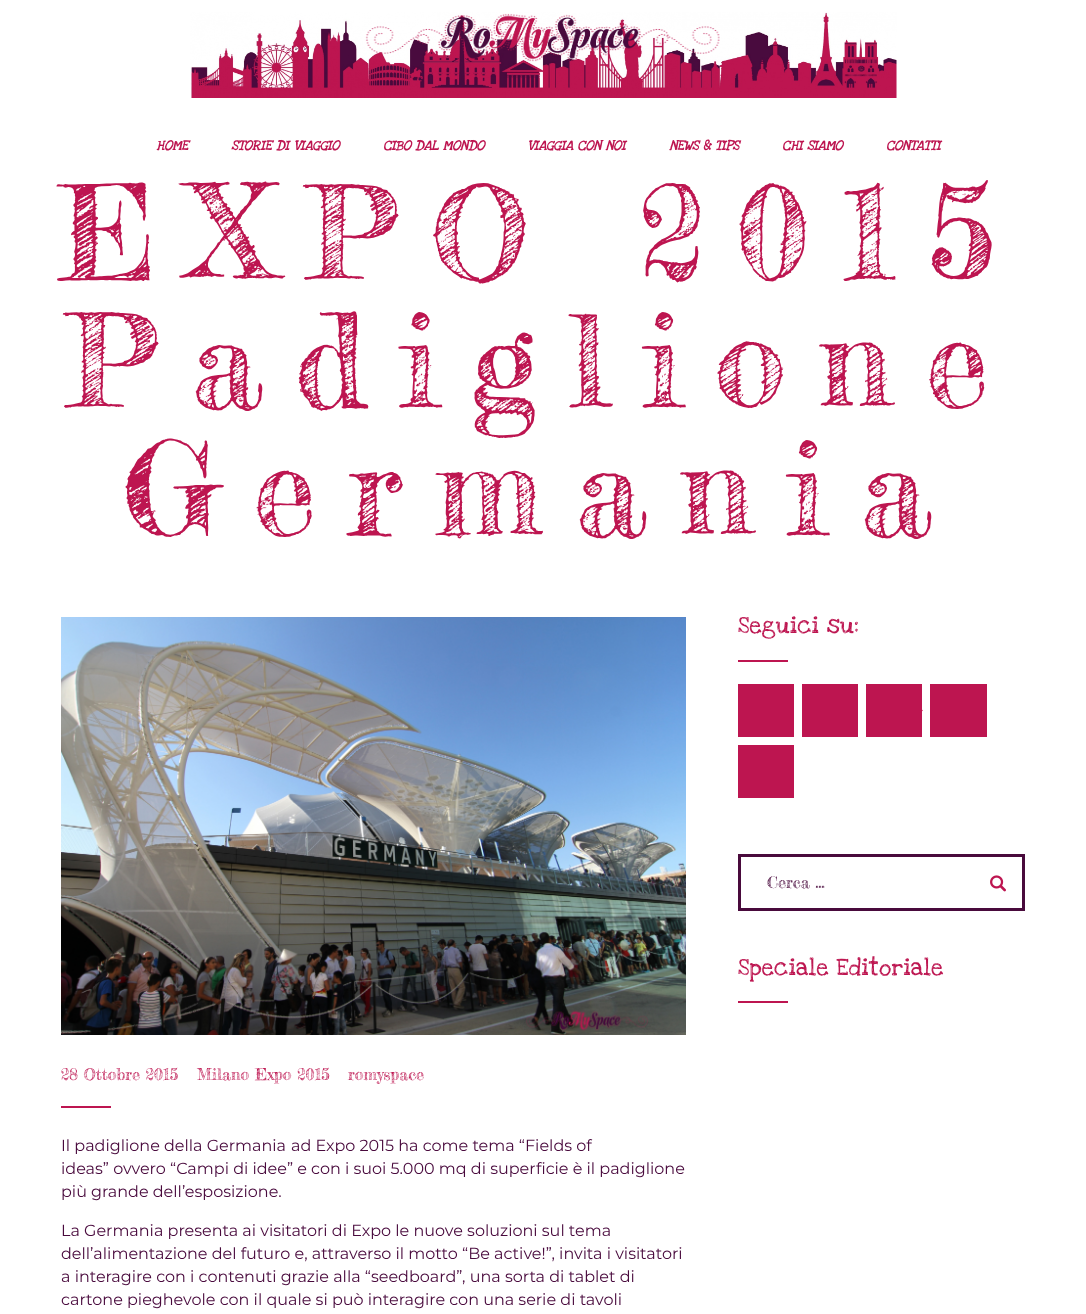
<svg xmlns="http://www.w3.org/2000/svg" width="1086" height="1314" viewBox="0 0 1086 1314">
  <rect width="100%" height="100%" fill="rgb(255,255,255)"/>
  <image x="190" y="12" width="707" height="86" href="pic1.png"/>
  <image x="365" y="13" width="355" height="49" href="pic2.png"/>
  <g font-family="Love Ya Like A Sister" font-size="14" font-weight="bold" font-style="italic" fill="rgb(189,21,80)">
    <text x="156" y="150">HOME</text>
    <text x="231" y="150">STORIE DI VIAGGIO</text>
    <text x="383" y="150">CIBO DAL MONDO</text>
    <text x="527" y="150">VIAGGIA CON NOI</text>
    <text x="669" y="150">NEWS &amp; TIPS</text>
    <text x="782" y="150">CHI SIAMO</text>
    <text x="886" y="150">CONTATTI</text>
  </g>
  <g font-family="Fredericka the Great" font-size="128" letter-spacing="32" fill="rgb(189,21,80)">
    <text x="59" y="279">EXPO 2015</text>
    <text x="66" y="407">Padiglione</text>
    <text x="123" y="535">Germania</text>
  </g>
  <text x="738" y="633" font-family="Love Ya Like A Sister" font-size="24" letter-spacing="0.25" fill="rgb(189,21,80)">Seguici su:</text>
  <rect x="738" y="660" width="50" height="2" fill="rgb(189,21,80)"/>
  <rect x="738" y="684" width="56" height="53" fill="rgb(189,21,80)"/>
  <rect x="802" y="684" width="56" height="53" fill="rgb(189,21,80)"/>
  <rect x="866" y="684" width="56" height="53" fill="rgb(189,21,80)"/>
  <image x="922" y="709" width="1" height="3" href="pic3.png"/>
  <rect x="930" y="684" width="57" height="53" fill="rgb(189,21,80)"/>
  <rect x="738" y="745" width="56" height="53" fill="rgb(189,21,80)"/>
  <rect x="739.5" y="855.5" width="284" height="54" fill="none" stroke="rgb(73,10,60)" stroke-width="3"/>
  <text x="767" y="888" font-family="Fredericka the Great" font-size="16" fill="rgb(73,10,61)">Cerca …</text>
  <image x="990" y="875" width="16" height="17" href="pic4.png"/>
  <text x="738" y="975" font-family="Love Ya Like A Sister" font-size="24" letter-spacing="0.25" fill="rgb(189,21,80)">Speciale Editoriale</text>
  <rect x="738" y="1001" width="50" height="2" fill="rgb(189,21,80)"/>
  <image x="61" y="617" width="625" height="418" href="pic5.png"/>
  <g font-family="Fredericka the Great" font-size="16" fill="rgb(189,21,80)">
    <text x="61" y="1080">28 Ottobre 2015</text>
    <text x="197" y="1080">Milano Expo 2015</text>
    <text x="348" y="1080">romyspace</text>
  </g>
  <rect x="61" y="1106" width="50" height="2" fill="rgb(189,21,80)"/>
  <g font-family="Montserrat" font-size="16" fill="rgb(73,10,61)">
    <text x="61" y="1151">Il padiglione della Germania</text>
    <text x="291" y="1151">ad Expo 2015 ha come tema “Fields of</text>
    <text>
      <tspan x="61" y="1174">ideas” ovvero “Campi di idee” e con i suoi 5.000 mq di superficie è il padiglione</tspan>
      <tspan x="61" y="1197">più grande dell’esposizione.</tspan>
    </text>
    <text>
      <tspan x="61" y="1236">La Germania presenta ai visitatori di Expo le nuove soluzioni sul tema</tspan>
      <tspan x="61" y="1259">dell’alimentazione del futuro e, attraverso il motto “Be active!”, invita i visitatori</tspan>
      <tspan x="61" y="1282">a interagire con i contenuti grazie alla “seedboard”, una sorta di tablet di</tspan>
      <tspan x="61" y="1305">cartone pieghevole con il quale si può interagire con una serie di tavoli</tspan>
    </text>
  </g>
</svg>
